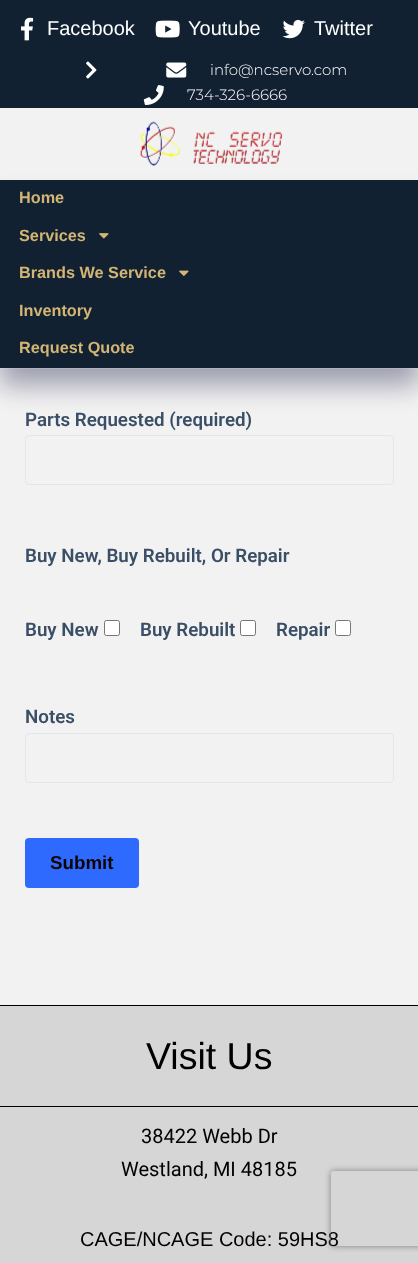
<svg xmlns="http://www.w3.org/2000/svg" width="418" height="1263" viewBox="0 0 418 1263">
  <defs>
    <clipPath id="clip1"><path d="M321 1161H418V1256H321ZM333.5 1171H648.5C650 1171 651 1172 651 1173.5V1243.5C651 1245 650 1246 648.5 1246H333.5C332 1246 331 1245 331 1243.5V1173.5C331 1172 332 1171 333.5 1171Z" clip-rule="evenodd"/></clipPath>
  </defs>
  <rect width="100%" height="100%" fill="rgb(242,242,242)"/>
  <rect x="0" y="6" width="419" height="369" fill="rgba(0,0,0,0.1)" filter="blur(19px)"/>
  <rect x="0" y="108" width="418" height="261" fill="rgb(242,242,242)"/>
  <rect x="0" y="0" width="418" height="108" fill="rgb(17,33,50)"/>
  <image x="21" y="17" width="13" height="24" href="pic1.png"/>
  <text x="47" y="35" font-family="Liberation Sans" font-size="20" fill="rgb(255,255,255)">Facebook</text>
  <image x="155" y="20" width="25" height="18" href="pic2.png"/>
  <text x="188" y="35" font-family="Liberation Sans" font-size="20" fill="rgb(255,255,255)">Youtube</text>
  <image x="282" y="19" width="23" height="20" href="pic3.png"/>
  <text x="314" y="35" font-family="Liberation Sans" font-size="20" fill="rgb(255,255,255)">Twitter</text>
  <image x="86" y="61" width="11" height="18" href="pic4.png"/>
  <image x="166" y="62" width="21" height="16" href="pic5.png"/>
  <text x="210" y="75" font-family="Montserrat" font-size="15" font-weight="300" fill="rgb(255,255,255)">info@ncservo.com</text>
  <image x="143" y="85" width="21" height="20" href="pic6.png"/>
  <text x="187" y="100" font-family="Montserrat" font-size="15" font-weight="300" fill="rgb(255,255,255)">734-326-6666</text>
  <image x="139" y="121" width="144" height="45" href="pic7.png"/>
  <rect x="0" y="199" width="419" height="187" fill="rgba(0,4,59,0.29)" filter="blur(12.5px)"/>
  <rect x="0" y="180" width="418" height="188" fill="rgb(17,33,50)"/>
  <g font-family="Liberation Sans" font-size="16.25" font-weight="bold" fill="rgb(211,181,116)">
    <text x="19" y="203">Home</text>
    <text x="19" y="241">Services</text>
  </g>
  <image x="99" y="233" width="10" height="6" href="pic8.png"/>
  <text x="19" y="278" font-family="Liberation Sans" font-size="16.25" font-weight="bold" fill="rgb(211,181,116)">Brands We Service</text>
  <image x="179" y="270" width="10" height="6" href="pic9.png"/>
  <g font-family="Liberation Sans" font-size="16.25" font-weight="bold" fill="rgb(211,181,116)">
    <text x="19" y="316">Inventory</text>
    <text x="19" y="353">Request Quote</text>
  </g>
  <text x="25" y="426" font-family="Roboto" font-size="18.75" font-weight="600" fill="rgb(58,79,102)">Parts Requested (required)</text>
  <rect x="25.5" y="435.5" width="368" height="49" rx="3.5" fill="none" stroke="rgb(225,232,237)"/>
  <g font-family="Roboto" font-size="18.75" font-weight="600" fill="rgb(58,79,102)">
    <text x="25" y="562">Buy New, Buy Rebuilt, Or Repair</text>
    <text x="25" y="636">Buy New</text>
  </g>
  <rect x="104.5" y="620.5" width="15" height="15" rx="2" fill="rgb(255,255,255)" stroke="rgb(118,118,118)"/>
  <text x="140" y="636" font-family="Roboto" font-size="18.75" font-weight="600" fill="rgb(58,79,102)">Buy Rebuilt</text>
  <rect x="240.5" y="620.5" width="15" height="15" rx="2" fill="rgb(255,255,255)" stroke="rgb(118,118,118)"/>
  <text x="276" y="636" font-family="Roboto" font-size="18.75" font-weight="600" fill="rgb(58,79,102)">Repair</text>
  <rect x="335.5" y="620.5" width="15" height="15" rx="2" fill="rgb(255,255,255)" stroke="rgb(118,118,118)"/>
  <text x="25" y="723" font-family="Roboto" font-size="18.75" font-weight="600" fill="rgb(58,79,102)">Notes</text>
  <rect x="25.5" y="733.5" width="368" height="49" rx="3.5" fill="none" stroke="rgb(225,232,237)"/>
  <rect x="25" y="838" width="114" height="50" rx="4" fill="rgb(47,106,254)"/>
  <text x="50" y="869" font-family="Liberation Sans" font-size="18.75" font-weight="bold" fill="rgb(13,5,4)">Submit</text>
  <rect x="0" y="1006" width="418" height="257" fill="rgb(214,214,214)"/>
  <rect x="0" y="1005" width="418" height="1" fill="rgb(0,0,0)"/>
  <text x="146" y="1069" font-family="Liberation Sans" font-size="37.5" fill="rgb(0,0,0)">Visit Us</text>
  <rect x="0" y="1106" width="418" height="1" fill="rgb(0,0,0)"/>
  <g font-family="Roboto" font-size="20" fill="rgb(0,0,0)">
    <text x="141" y="1143">38422 Webb Dr</text>
    <text x="121" y="1176">Westland, MI 48185</text>
  </g>
  <text x="80" y="1246" font-family="Liberation Sans" font-size="20" fill="rgb(0,0,0)">CAGE/NCAGE Code: 59HS8</text>
  <g clip-path="url(#clip1)">
    <rect x="331" y="1171" width="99" height="75" rx="2.5" fill="rgb(128,128,128)" filter="blur(3px)"/>
  </g>
</svg>
